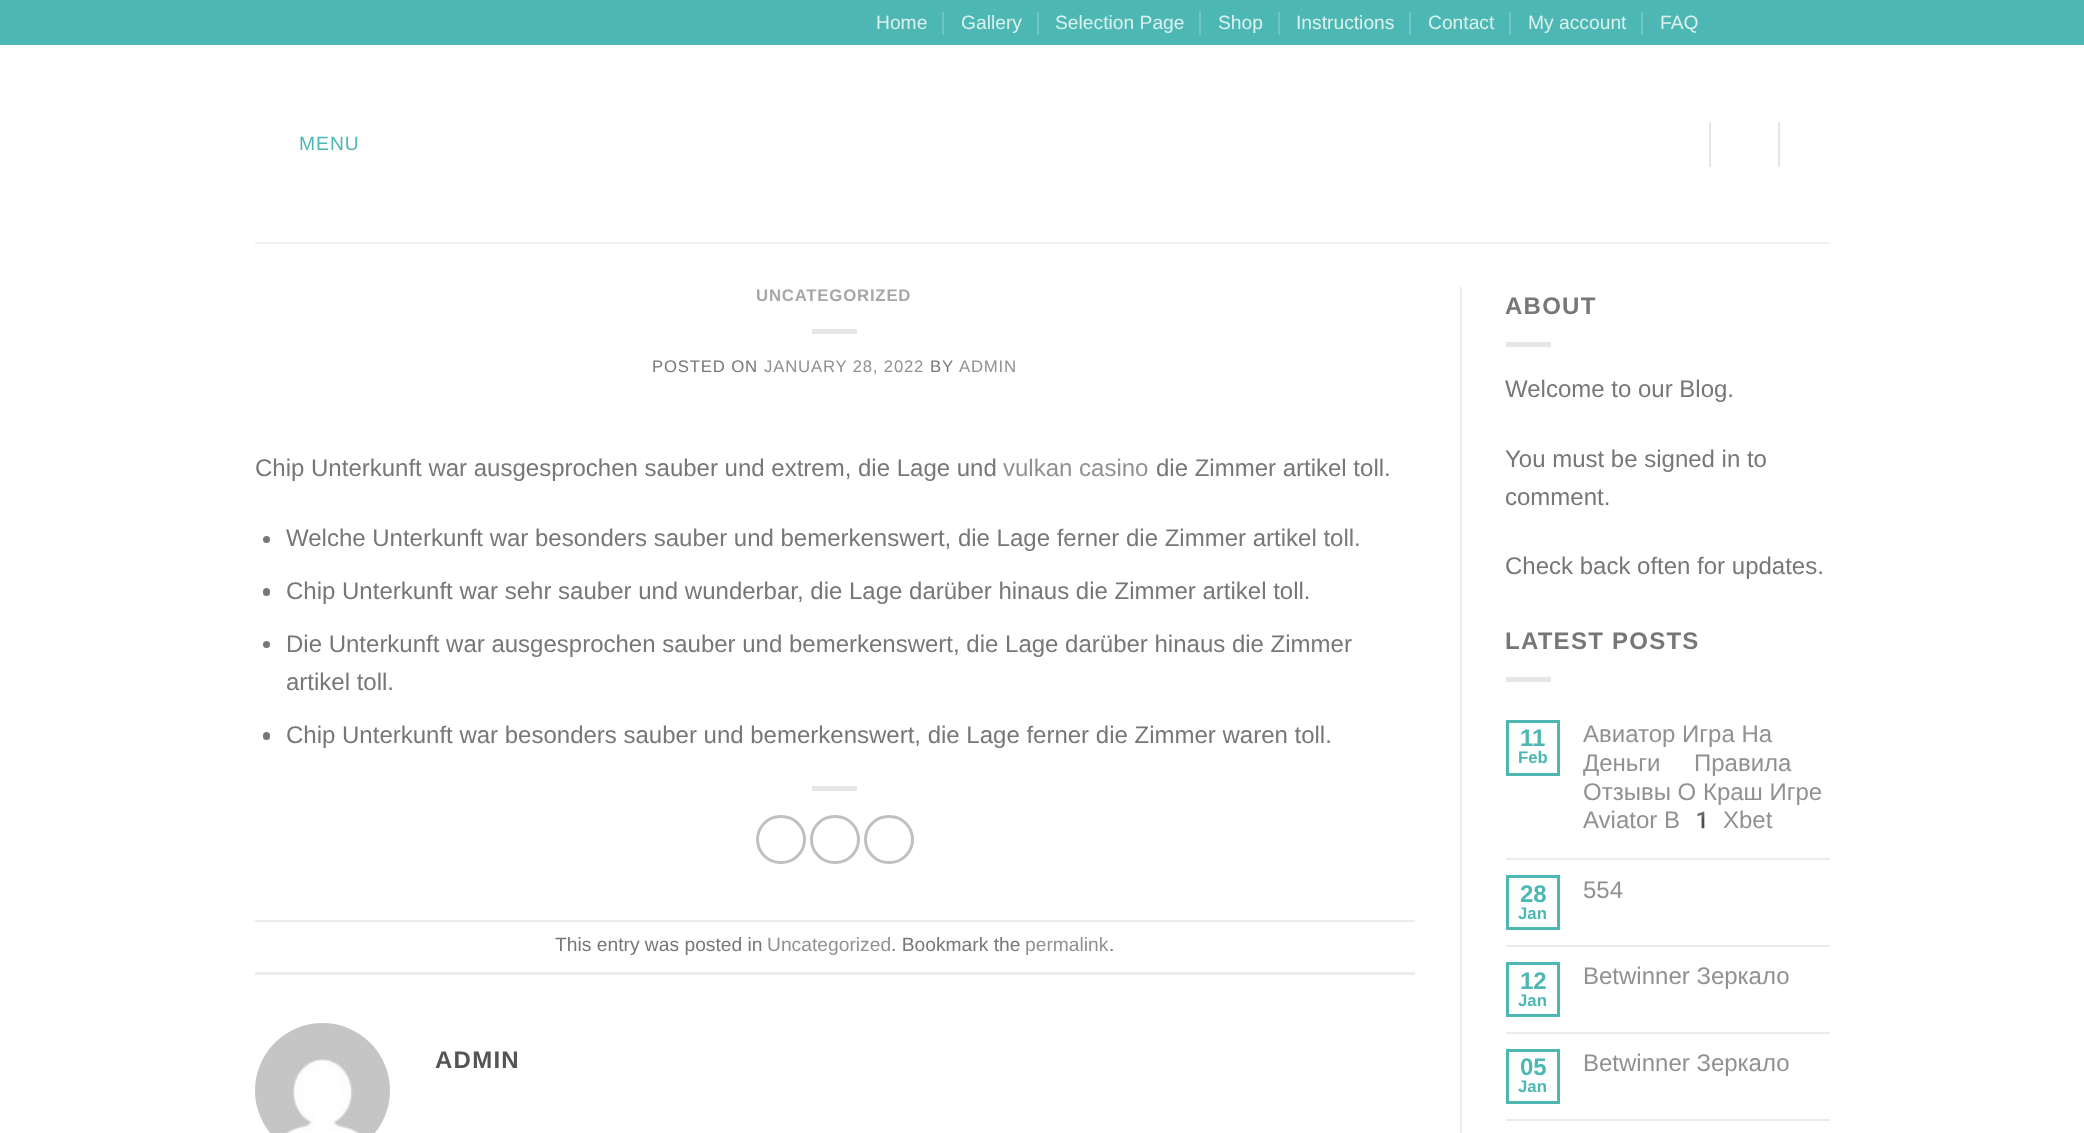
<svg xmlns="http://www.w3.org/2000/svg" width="2084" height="1133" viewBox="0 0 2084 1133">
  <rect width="100%" height="100%" fill="rgb(255,255,255)"/>
  <rect x="0" y="0" width="2084" height="45" fill="rgb(77,183,179)"/>
  <text x="876" y="29" font-family="Liberation Sans" font-size="19.25" fill="rgb(219,241,240)">Home</text>
  <rect x="942" y="12" width="2" height="23" fill="rgb(113,197,194)"/>
  <text x="961" y="29" font-family="Liberation Sans" font-size="19.25" fill="rgb(219,241,240)">Gallery</text>
  <rect x="1037" y="12" width="2" height="23" fill="rgb(113,197,194)"/>
  <text x="1055" y="29" font-family="Liberation Sans" font-size="19.25" fill="rgb(219,241,240)">Selection Page</text>
  <rect x="1199" y="12" width="2" height="23" fill="rgb(113,197,194)"/>
  <text x="1218" y="29" font-family="Liberation Sans" font-size="19.25" fill="rgb(219,241,240)">Shop</text>
  <rect x="1278" y="12" width="2" height="23" fill="rgb(113,197,194)"/>
  <text x="1296" y="29" font-family="Liberation Sans" font-size="19.25" fill="rgb(219,241,240)">Instructions</text>
  <rect x="1409" y="12" width="2" height="23" fill="rgb(113,197,194)"/>
  <text x="1428" y="29" font-family="Liberation Sans" font-size="19.25" fill="rgb(219,241,240)">Contact</text>
  <rect x="1509" y="12" width="2" height="23" fill="rgb(113,197,194)"/>
  <text x="1528" y="29" font-family="Liberation Sans" font-size="19.25" fill="rgb(219,241,240)">My account</text>
  <rect x="1641" y="12" width="2" height="23" fill="rgb(113,197,194)"/>
  <text x="1660" y="29" font-family="Liberation Sans" font-size="19.25" fill="rgb(219,241,240)">FAQ</text>
  <text x="299" y="150" font-family="Liberation Sans" font-size="19.25" letter-spacing="1" fill="rgb(77,183,179)">MENU</text>
  <rect x="1709" y="122" width="2" height="45" fill="rgb(230,230,230)"/>
  <rect x="1778" y="122" width="2" height="45" fill="rgb(230,230,230)"/>
  <rect x="255" y="242" width="1575" height="2" fill="rgb(241,241,241)"/>
  <text x="756" y="301" font-family="Liberation Sans" font-size="16.75" font-weight="bold" letter-spacing="0.8" fill="rgb(167,167,167)">UNCATEGORIZED</text>
  <rect x="812" y="329" width="45" height="5" fill="rgb(230,230,230)"/>
  <text x="652" y="372" font-family="Liberation Sans" font-size="16.75" letter-spacing="0.8" fill="rgb(119,119,119)">POSTED ON</text>
  <text x="764" y="372" font-family="Liberation Sans" font-size="16.75" letter-spacing="0.8" fill="rgb(145,145,145)">JANUARY 28, 2022</text>
  <text x="930" y="372" font-family="Liberation Sans" font-size="16.75" letter-spacing="0.8" fill="rgb(119,119,119)">BY</text>
  <text x="959" y="372" font-family="Liberation Sans" font-size="16.75" letter-spacing="0.8" fill="rgb(145,145,145)">ADMIN</text>
  <text x="255" y="476" font-family="Liberation Sans" font-size="24" fill="rgb(119,119,119)">Chip Unterkunft war ausgesprochen sauber und extrem, die Lage und</text>
  <text x="1003" y="476" font-family="Liberation Sans" font-size="24" fill="rgb(145,145,145)">vulkan casino</text>
  <text x="1156" y="476" font-family="Liberation Sans" font-size="24" fill="rgb(119,119,119)">die Zimmer artikel toll.</text>
  <circle cx="266.5" cy="539.5" r="3.5" fill="rgb(119,119,119)"/>
  <text x="286" y="546" font-family="Liberation Sans" font-size="24" fill="rgb(119,119,119)">Welche Unterkunft war besonders sauber und bemerkenswert, die Lage ferner die Zimmer artikel toll.</text>
  <rect x="263" y="588" width="7" height="8" rx="3.5" fill="rgb(119,119,119)"/>
  <text x="286" y="599" font-family="Liberation Sans" font-size="24" fill="rgb(119,119,119)">Chip Unterkunft war sehr sauber und wunderbar, die Lage darüber hinaus die Zimmer artikel toll.</text>
  <circle cx="266.5" cy="644.5" r="3.5" fill="rgb(119,119,119)"/>
  <g font-family="Liberation Sans" font-size="24" fill="rgb(119,119,119)">
    <text>
      <tspan x="286" y="652">Die Unterkunft war ausgesprochen sauber und bemerkenswert, die Lage darüber hinaus die Zimmer</tspan>
      <tspan x="286" y="690">artikel toll.</tspan>
    </text>
  </g>
  <rect x="263" y="732" width="7" height="8" rx="3.5" fill="rgb(119,119,119)"/>
  <text x="286" y="743" font-family="Liberation Sans" font-size="24" fill="rgb(119,119,119)">Chip Unterkunft war besonders sauber und bemerkenswert, die Lage ferner die Zimmer waren toll.</text>
  <rect x="812" y="786" width="45" height="5" fill="rgb(230,230,230)"/>
  <rect x="757.5" y="816.5" width="47" height="46" rx="23" fill="none" stroke="rgb(192,192,192)" stroke-width="3"/>
  <rect x="811.5" y="816.5" width="47" height="46" rx="23" fill="none" stroke="rgb(192,192,192)" stroke-width="3"/>
  <rect x="865.5" y="816.5" width="47" height="46" rx="23" fill="none" stroke="rgb(192,192,192)" stroke-width="3"/>
  <rect x="255" y="920" width="1160" height="2" fill="rgb(236,236,236)"/>
  <rect x="255" y="972" width="1160" height="3" fill="rgb(236,236,236)"/>
  <text x="555" y="951" font-family="Liberation Sans" font-size="19.25" fill="rgb(119,119,119)">This entry was posted in</text>
  <text x="767" y="951" font-family="Liberation Sans" font-size="19.25" fill="rgb(145,145,145)">Uncategorized</text>
  <text x="891" y="951" font-family="Liberation Sans" font-size="19.25" fill="rgb(119,119,119)">. Bookmark the</text>
  <text x="1025" y="951" font-family="Liberation Sans" font-size="19.25" fill="rgb(145,145,145)">permalink</text>
  <text x="1109" y="951" font-family="Liberation Sans" font-size="19.25" fill="rgb(119,119,119)">.</text>
  <image x="255" y="1023" width="135" height="110" href="pic1.png"/>
  <text x="435" y="1068" font-family="Liberation Sans" font-size="24" font-weight="bold" letter-spacing="1.25" fill="rgb(85,85,85)">ADMIN</text>
  <rect x="1460" y="287" width="2" height="846" fill="rgb(236,236,236)"/>
  <text x="1505" y="314" font-family="Liberation Sans" font-size="24" font-weight="bold" letter-spacing="1.25" fill="rgb(119,119,119)">ABOUT</text>
  <rect x="1506" y="342" width="45" height="5" fill="rgb(230,230,230)"/>
  <g font-family="Liberation Sans" font-size="24" fill="rgb(119,119,119)">
    <text x="1505" y="397">Welcome to our Blog.</text>
    <text>
      <tspan x="1505" y="467">You must be signed in to</tspan>
      <tspan x="1505" y="505">comment.</tspan>
    </text>
    <text x="1505" y="574">Check back often for updates.</text>
  </g>
  <text x="1505" y="649" font-family="Liberation Sans" font-size="24" font-weight="bold" letter-spacing="1.25" fill="rgb(119,119,119)">LATEST POSTS</text>
  <rect x="1506" y="677" width="45" height="5" fill="rgb(230,230,230)"/>
  <rect x="1507.5" y="721.5" width="51" height="53" fill="none" stroke="rgb(77,183,179)" stroke-width="3"/>
  <text x="1520" y="746" font-family="Liberation Sans" font-size="24" font-weight="bold" fill="rgb(77,183,179)">11</text>
  <text x="1518" y="763" font-family="Liberation Sans" font-size="16.75" font-weight="bold" fill="rgb(77,183,179)">Feb</text>
  <g font-family="Liberation Sans" font-size="24" fill="rgb(145,145,145)">
    <text>
      <tspan x="1583" y="742">Авиатор Игра На</tspan>
      <tspan x="1583" y="771">Деньги</tspan>
    </text>
    <text x="1694" y="771">Правила</text>
    <text>
      <tspan x="1583" y="800">Отзывы О Краш Игре</tspan>
      <tspan x="1583" y="828">Aviator В</tspan>
    </text>
  </g>
  <text x="1687" y="828" font-family="Noto Color Emoji" font-size="24" fill="rgb(145,145,145)">1️</text>
  <text x="1723" y="828" font-family="Liberation Sans" font-size="24" fill="rgb(145,145,145)">Xbet</text>
  <rect x="1506" y="858" width="324" height="2" fill="rgb(236,236,236)"/>
  <rect x="1507.5" y="876.5" width="51" height="52" fill="none" stroke="rgb(77,183,179)" stroke-width="3"/>
  <text x="1520" y="902" font-family="Liberation Sans" font-size="24" font-weight="bold" fill="rgb(77,183,179)">28</text>
  <text x="1518" y="919" font-family="Liberation Sans" font-size="16.75" font-weight="bold" fill="rgb(77,183,179)">Jan</text>
  <text x="1583" y="898" font-family="Liberation Sans" font-size="24" fill="rgb(145,145,145)">554</text>
  <rect x="1506" y="945" width="324" height="2" fill="rgb(236,236,236)"/>
  <rect x="1507.5" y="963.5" width="51" height="52" fill="none" stroke="rgb(77,183,179)" stroke-width="3"/>
  <text x="1520" y="989" font-family="Liberation Sans" font-size="24" font-weight="bold" fill="rgb(77,183,179)">12</text>
  <text x="1518" y="1006" font-family="Liberation Sans" font-size="16.75" font-weight="bold" fill="rgb(77,183,179)">Jan</text>
  <text x="1583" y="984" font-family="Liberation Sans" font-size="24" fill="rgb(145,145,145)">Betwinner Зеркало</text>
  <rect x="1506" y="1032" width="324" height="2" fill="rgb(236,236,236)"/>
  <rect x="1507.5" y="1050.5" width="51" height="52" fill="none" stroke="rgb(77,183,179)" stroke-width="3"/>
  <text x="1520" y="1075" font-family="Liberation Sans" font-size="24" font-weight="bold" fill="rgb(77,183,179)">05</text>
  <text x="1518" y="1092" font-family="Liberation Sans" font-size="16.75" font-weight="bold" fill="rgb(77,183,179)">Jan</text>
  <text x="1583" y="1071" font-family="Liberation Sans" font-size="24" fill="rgb(145,145,145)">Betwinner Зеркало</text>
  <rect x="1506" y="1119" width="324" height="2" fill="rgb(236,236,236)"/>
</svg>
